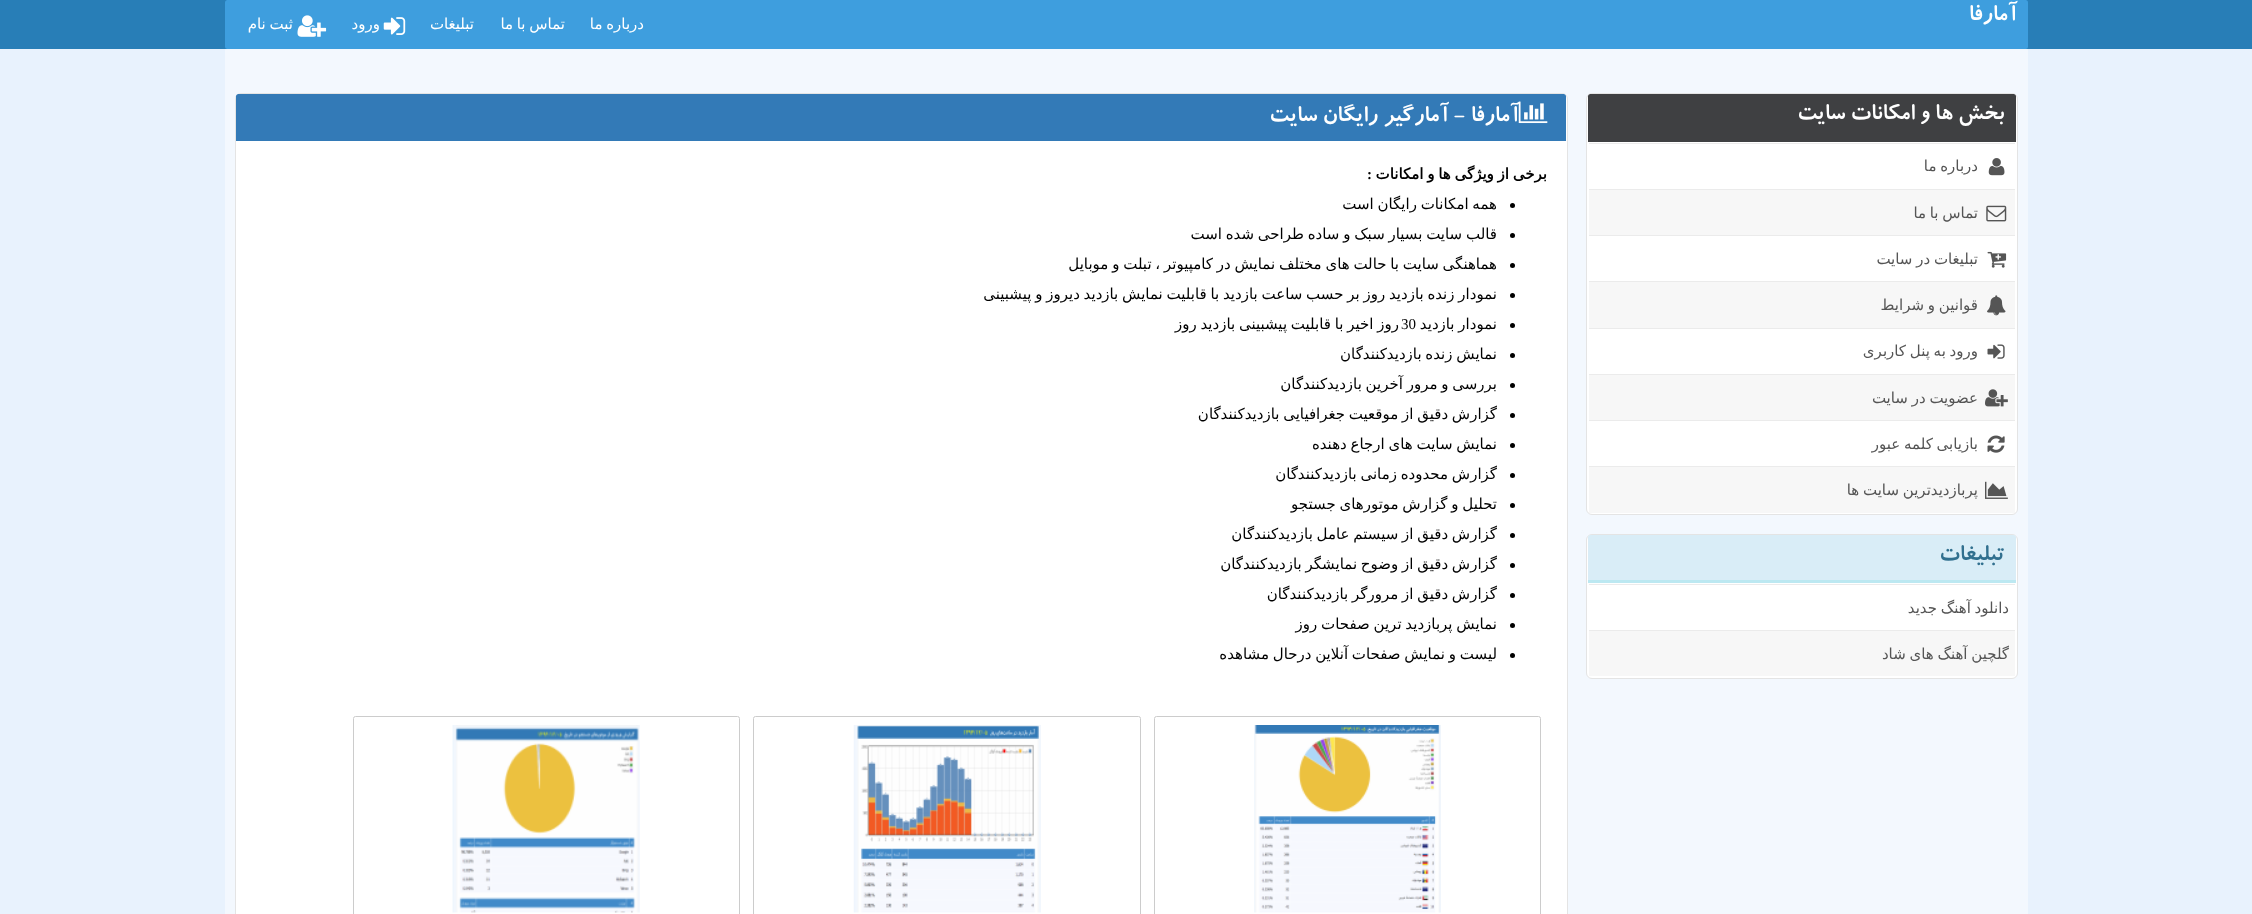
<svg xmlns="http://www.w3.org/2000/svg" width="2252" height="914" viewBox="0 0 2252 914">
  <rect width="100%" height="100%" fill="rgb(232,242,253)"/>
  <rect x="0" y="0" width="2252" height="49" fill="rgb(40,126,183)"/>
  <rect x="225" y="0" width="1803" height="49" rx="2.5" fill="rgb(62,158,222)"/>
  <text x="2017" y="20" font-family="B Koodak" font-size="25" font-weight="bold" direction="rtl" fill="rgb(255,255,255)">آمارفا</text>
  <g font-family="DejaVu Sans" font-size="15" direction="rtl" fill="rgb(255,255,255)">
    <text x="644" y="29" word-spacing="-1">درباره ما</text>
    <text x="565" y="29" word-spacing="-1">تماس با ما</text>
    <text x="474" y="29">تبلیغات</text>
  </g>
  <image x="383" y="17" width="23" height="18" href="pic1.png"/>
  <text x="380" y="29" font-family="DejaVu Sans" font-size="15" direction="rtl" fill="rgb(255,255,255)">ورود</text>
  <image x="297" y="15" width="30" height="22" href="pic2.png"/>
  <text x="293" y="29" word-spacing="-1" font-family="DejaVu Sans" font-size="15" direction="rtl" fill="rgb(255,255,255)">ثبت نام</text>
  <rect x="225" y="49" width="1803" height="865" fill="rgb(243,248,254)"/>
  <rect x="1586.5" y="93.5" width="431" height="421" rx="5.5" fill="rgb(255,255,255)" stroke="rgb(228,228,228)"/>
  <path d="M1590.5 94H2013.5C2015 94 2016 95 2016 96.5V141H1588V96.5C1588 95 1589 94 1590.5 94Z" fill="rgb(63,64,66)"/>
  <rect x="1588" y="141" width="428" height="1" fill="rgb(63,64,66)"/>
  <text x="2004" y="119" font-family="B Koodak" font-size="25" font-weight="bold" direction="rtl" fill="rgb(255,255,255)">بخش ها و امکانات سایت</text>
  <rect x="1589" y="143" width="426" height="1" fill="rgb(235,235,235)"/>
  <image x="1988" y="158" width="17" height="18" href="pic3.png"/>
  <text x="1978" y="171" word-spacing="-1" font-family="DejaVu Sans" font-size="15" direction="rtl" fill="rgb(85,85,85)">درباره ما</text>
  <rect x="1589" y="190" width="426" height="45" fill="rgb(247,247,247)"/>
  <rect x="1589" y="189" width="426" height="1" fill="rgb(235,235,235)"/>
  <image x="1986" y="205" width="21" height="17" href="pic4.png"/>
  <text x="1978" y="218" word-spacing="-1" font-family="DejaVu Sans" font-size="15" direction="rtl" fill="rgb(85,85,85)">تماس با ما</text>
  <rect x="1589" y="235" width="426" height="1" fill="rgb(235,235,235)"/>
  <image x="1987" y="251" width="20" height="17" href="pic5.png"/>
  <text x="1978" y="264" word-spacing="-1" font-family="DejaVu Sans" font-size="15" direction="rtl" fill="rgb(85,85,85)">تبلیغات در سایت</text>
  <rect x="1589" y="282" width="426" height="46" fill="rgb(247,247,247)"/>
  <rect x="1589" y="281" width="426" height="1" fill="rgb(235,235,235)"/>
  <image x="1987" y="295" width="19" height="21" href="pic6.png"/>
  <text x="1978" y="310" word-spacing="-1" font-family="DejaVu Sans" font-size="15" direction="rtl" fill="rgb(85,85,85)">قوانین و شرایط</text>
  <rect x="1589" y="328" width="426" height="1" fill="rgb(235,235,235)"/>
  <image x="1987" y="344" width="18" height="15" href="pic7.png"/>
  <text x="1978" y="356" word-spacing="-1" font-family="DejaVu Sans" font-size="15" direction="rtl" fill="rgb(85,85,85)">ورود به پنل کاربری</text>
  <rect x="1589" y="375" width="426" height="45" fill="rgb(247,247,247)"/>
  <rect x="1589" y="374" width="426" height="1" fill="rgb(235,235,235)"/>
  <image x="1985" y="389" width="23" height="18" href="pic8.png"/>
  <text x="1978" y="403" word-spacing="-1" font-family="DejaVu Sans" font-size="15" direction="rtl" fill="rgb(85,85,85)">عضویت در سایت</text>
  <rect x="1589" y="420" width="426" height="1" fill="rgb(235,235,235)"/>
  <image x="1987" y="435" width="18" height="18" href="pic9.png"/>
  <text x="1978" y="449" word-spacing="-1" font-family="DejaVu Sans" font-size="15" direction="rtl" fill="rgb(85,85,85)">بازیابی کلمه عبور</text>
  <rect x="1589" y="467" width="426" height="46" fill="rgb(247,247,247)"/>
  <rect x="1589" y="466" width="426" height="1" fill="rgb(235,235,235)"/>
  <image x="1985" y="481" width="23" height="18" href="pic10.png"/>
  <text x="1978" y="495" word-spacing="-1" font-family="DejaVu Sans" font-size="15" direction="rtl" fill="rgb(85,85,85)">پربازدیدترین سایت ها</text>
  <rect x="1586.5" y="534.5" width="431" height="144" rx="5.5" fill="rgb(255,255,255)" stroke="rgb(228,228,228)"/>
  <path d="M1590.5 535H2013.5C2015 535 2016 536 2016 537.5V583H1588V537.5C1588 536 1589 535 1590.5 535Z" fill="rgb(217,237,247)"/>
  <rect x="1588" y="580" width="428" height="3" fill="rgb(188,232,241)"/>
  <text x="2004" y="560" font-family="B Koodak" font-size="25" font-weight="bold" direction="rtl" fill="rgb(49,112,143)">تبلیغات</text>
  <rect x="1589" y="584" width="426" height="1" fill="rgb(235,235,235)"/>
  <text x="2009" y="613" word-spacing="-1" font-family="DejaVu Sans" font-size="15" direction="rtl" fill="rgb(85,85,85)">دانلود آهنگ جدید</text>
  <rect x="1589" y="631" width="426" height="45" fill="rgb(247,247,247)"/>
  <rect x="1589" y="630" width="426" height="1" fill="rgb(235,235,235)"/>
  <text x="2009" y="659" word-spacing="-1" font-family="DejaVu Sans" font-size="15" direction="rtl" fill="rgb(85,85,85)">گلچین آهنگ های شاد</text>
  <rect x="235.5" y="93.5" width="1332" height="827" rx="5.5" fill="rgb(255,255,255)" stroke="rgb(228,228,228)"/>
  <path d="M238.5 94H1563.5C1565 94 1566 95 1566 96.5V140H236V96.5C236 95 237 94 238.5 94Z" fill="rgb(51,122,183)"/>
  <rect x="236" y="140" width="1330" height="1" fill="rgb(51,122,183)"/>
  <image x="1518" y="101" width="30" height="23" href="pic11.png"/>
  <text x="1519" y="121" font-family="B Koodak" font-size="25" font-weight="bold" direction="rtl" fill="rgb(255,255,255)">آمارفا - آمارگیر رایگان سایت</text>
  <text x="1547" y="179" word-spacing="-1" font-family="DejaVu Sans" font-size="15" font-weight="bold" direction="rtl" fill="rgb(0,0,0)">برخی از ویژگی ها و امکانات</text>
  <text x="1372" y="179" font-family="Liberation Serif" font-size="15" font-weight="bold" direction="rtl" fill="rgb(0,0,0)">:</text>
  <circle cx="1512.5" cy="205.5" r="2.5" fill="rgb(0,0,0)"/>
  <text x="1497" y="209" word-spacing="-1" font-family="DejaVu Sans" font-size="15" direction="rtl" fill="rgb(0,0,0)">همه امکانات رایگان است</text>
  <circle cx="1512.5" cy="235.5" r="2.5" fill="rgb(0,0,0)"/>
  <text x="1497" y="239" word-spacing="-1" font-family="DejaVu Sans" font-size="15" direction="rtl" fill="rgb(0,0,0)">قالب سایت بسیار سبک و ساده طراحی شده است</text>
  <circle cx="1512.5" cy="265.5" r="2.5" fill="rgb(0,0,0)"/>
  <text x="1497" y="269" word-spacing="-1" font-family="DejaVu Sans" font-size="15" direction="rtl" fill="rgb(0,0,0)">هماهنگی سایت با حالت های مختلف نمایش در کامپیوتر ، تبلت و موبایل</text>
  <circle cx="1512.5" cy="295.5" r="2.5" fill="rgb(0,0,0)"/>
  <text x="1497" y="299" word-spacing="-1" font-family="DejaVu Sans" font-size="15" direction="rtl" fill="rgb(0,0,0)">نمودار زنده بازدید روز بر حسب ساعت بازدید با قابلیت نمایش بازدید دیروز و پیشبینی</text>
  <circle cx="1512.5" cy="325.5" r="2.5" fill="rgb(0,0,0)"/>
  <g font-family="DejaVu Sans" font-size="15" direction="rtl" fill="rgb(0,0,0)">
    <text x="1497" y="329" word-spacing="-1">نمودار بازدید</text>
    <text x="1399" y="329" word-spacing="-1">روز اخیر با قابلیت پیشبینی بازدید روز</text>
  </g>
  <text x="1401" y="329" font-family="Liberation Serif" font-size="15" fill="rgb(0,0,0)">30</text>
  <circle cx="1512.5" cy="355.5" r="2.5" fill="rgb(0,0,0)"/>
  <text x="1497" y="359" word-spacing="-1" font-family="DejaVu Sans" font-size="15" direction="rtl" fill="rgb(0,0,0)">نمایش زنده بازدیدکنندگان</text>
  <circle cx="1512.5" cy="385.5" r="2.5" fill="rgb(0,0,0)"/>
  <text x="1497" y="389" word-spacing="-1" font-family="DejaVu Sans" font-size="15" direction="rtl" fill="rgb(0,0,0)">بررسی و مرور آخرین بازدیدکنندگان</text>
  <circle cx="1512.5" cy="415.5" r="2.5" fill="rgb(0,0,0)"/>
  <text x="1497" y="419" word-spacing="-1" font-family="DejaVu Sans" font-size="15" direction="rtl" fill="rgb(0,0,0)">گزارش دقیق از موقعیت جغرافیایی بازدیدکنندگان</text>
  <circle cx="1512.5" cy="445.5" r="2.5" fill="rgb(0,0,0)"/>
  <text x="1497" y="449" word-spacing="-1" font-family="DejaVu Sans" font-size="15" direction="rtl" fill="rgb(0,0,0)">نمایش سایت های ارجاع دهنده</text>
  <circle cx="1512.5" cy="475.5" r="2.5" fill="rgb(0,0,0)"/>
  <text x="1497" y="479" word-spacing="-1" font-family="DejaVu Sans" font-size="15" direction="rtl" fill="rgb(0,0,0)">گزارش محدوده زمانی بازدیدکنندگان</text>
  <circle cx="1512.5" cy="505.5" r="2.5" fill="rgb(0,0,0)"/>
  <text x="1497" y="509" word-spacing="-1" font-family="DejaVu Sans" font-size="15" direction="rtl" fill="rgb(0,0,0)">تحلیل و گزارش موتورهای جستجو</text>
  <circle cx="1512.5" cy="535.5" r="2.5" fill="rgb(0,0,0)"/>
  <text x="1497" y="539" word-spacing="-1" font-family="DejaVu Sans" font-size="15" direction="rtl" fill="rgb(0,0,0)">گزارش دقیق از سیستم عامل بازدیدکنندگان</text>
  <circle cx="1512.5" cy="565.5" r="2.5" fill="rgb(0,0,0)"/>
  <text x="1497" y="569" word-spacing="-1" font-family="DejaVu Sans" font-size="15" direction="rtl" fill="rgb(0,0,0)">گزارش دقیق از وضوح نمایشگر بازدیدکنندگان</text>
  <circle cx="1512.5" cy="595.5" r="2.5" fill="rgb(0,0,0)"/>
  <text x="1497" y="599" word-spacing="-1" font-family="DejaVu Sans" font-size="15" direction="rtl" fill="rgb(0,0,0)">گزارش دقیق از مرورگر بازدیدکنندگان</text>
  <circle cx="1512.5" cy="625.5" r="2.5" fill="rgb(0,0,0)"/>
  <text x="1497" y="629" word-spacing="-1" font-family="DejaVu Sans" font-size="15" direction="rtl" fill="rgb(0,0,0)">نمایش پربازدید ترین صفحات روز</text>
  <circle cx="1512.5" cy="655.5" r="2.5" fill="rgb(0,0,0)"/>
  <text x="1497" y="659" word-spacing="-1" font-family="DejaVu Sans" font-size="15" direction="rtl" fill="rgb(0,0,0)">لیست و نمایش صفحات آنلاین درحال مشاهده</text>
  <rect x="1154.5" y="716.5" width="386" height="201" rx="2" fill="none" stroke="rgb(204,204,204)"/>
  <image x="1254" y="725" width="187" height="188" href="pic12.png"/>
  <rect x="753.5" y="716.5" width="387" height="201" rx="2" fill="none" stroke="rgb(204,204,204)"/>
  <image x="853" y="725" width="188" height="188" href="pic13.png"/>
  <rect x="353.5" y="716.5" width="386" height="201" rx="2" fill="none" stroke="rgb(204,204,204)"/>
  <image x="452" y="725" width="188" height="188" href="pic14.png"/>
</svg>
